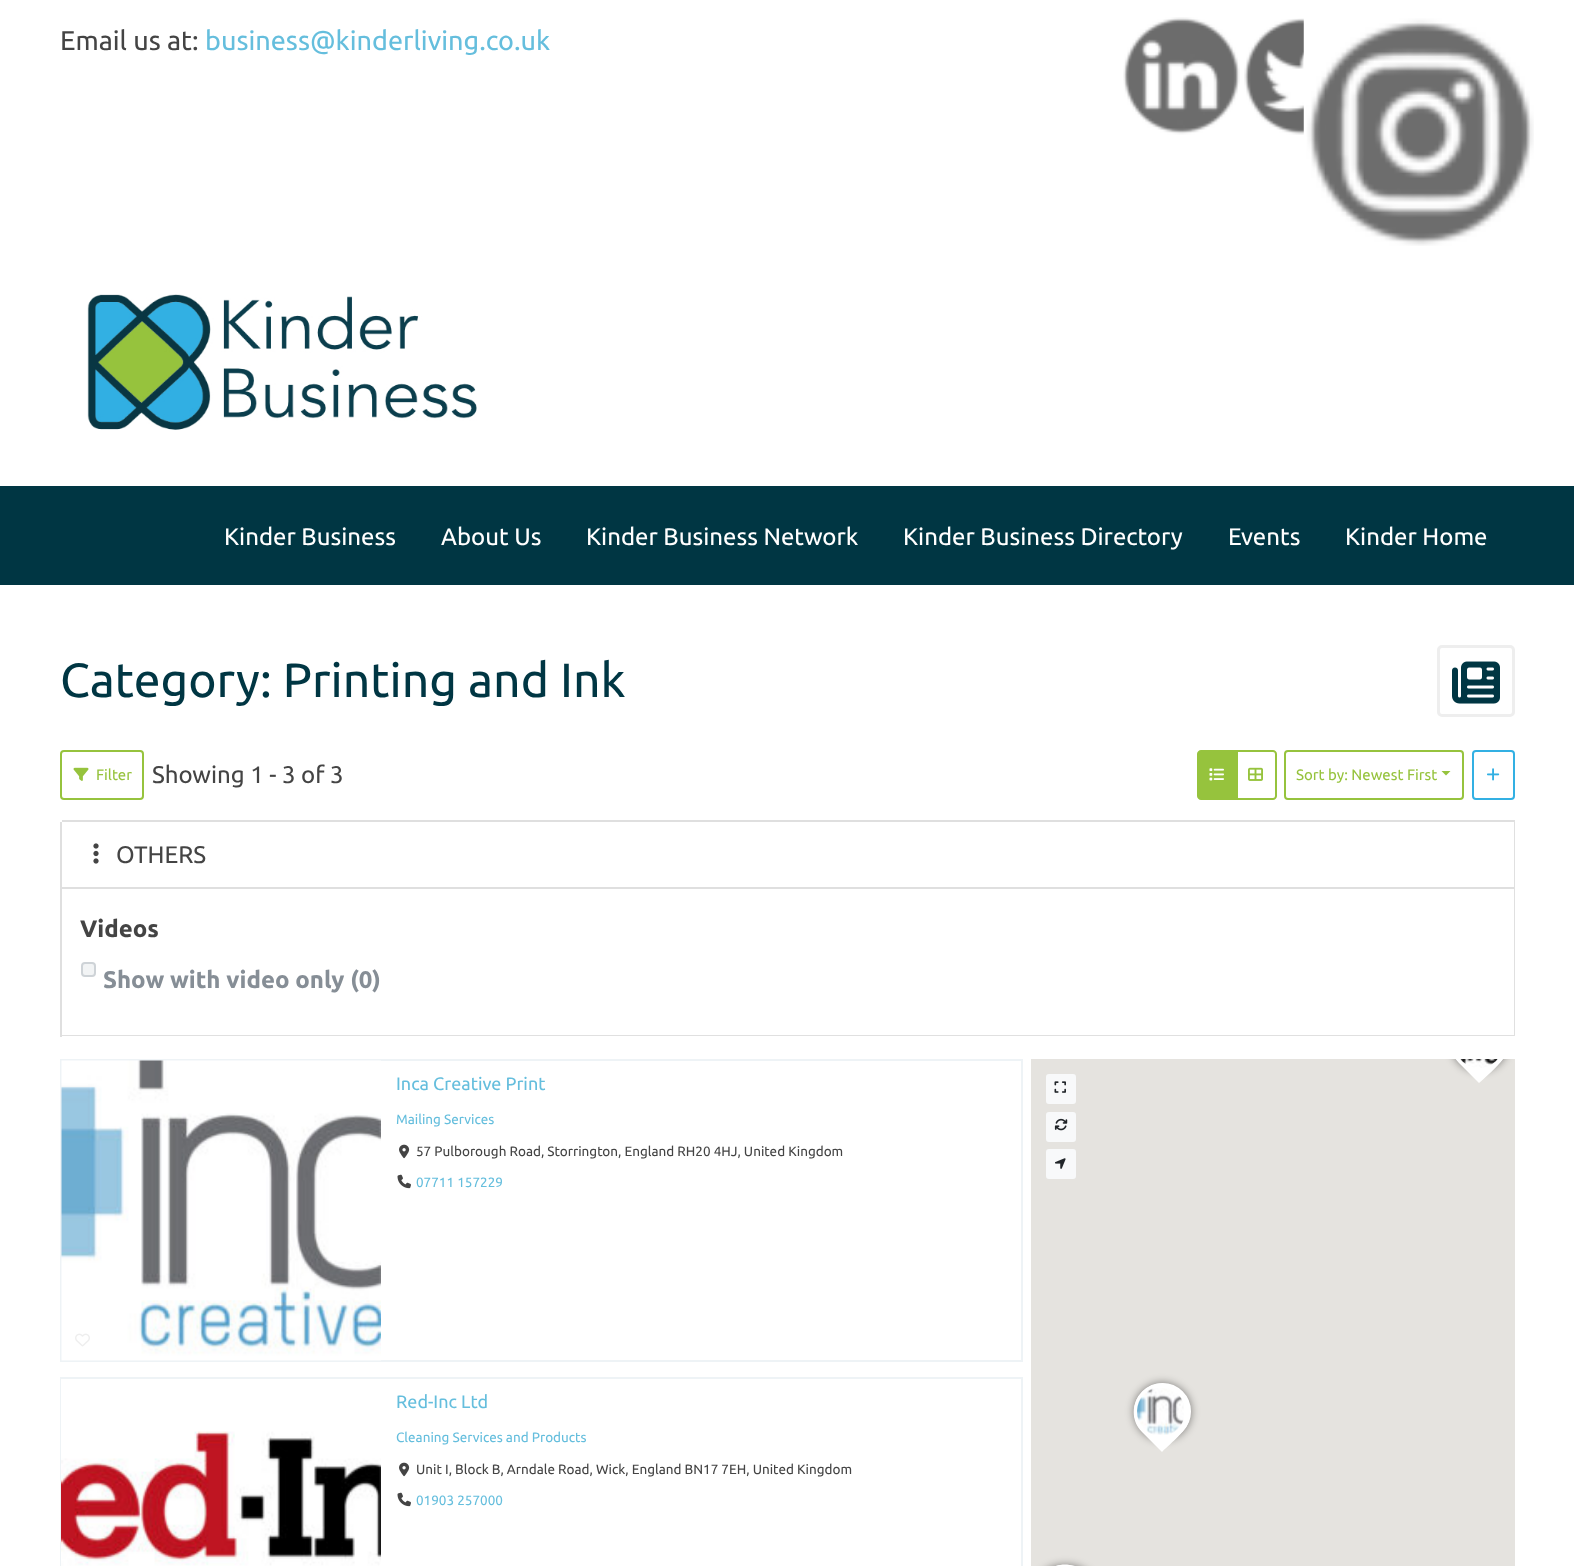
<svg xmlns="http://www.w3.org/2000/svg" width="1574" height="1566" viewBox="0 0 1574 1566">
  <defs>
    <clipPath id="clip1"><rect x="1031" y="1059" width="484" height="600"/></clipPath>
    <clipPath id="clip2"><rect x="1031" y="1059" width="484" height="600"/></clipPath>
  </defs>
  <rect width="100%" height="100%" fill="rgb(255,255,255)"/>
  <text x="60" y="50" font-family="Ubuntu" font-size="27" fill="rgb(68,68,68)">Email us at:</text>
  <text x="205" y="50" font-family="Ubuntu" font-size="27" fill="rgb(101,190,221)">business@kinderliving.co.uk</text>
  <image x="1123" y="17" width="117" height="118" href="pic1.png"/>
  <image x="1244" y="18" width="60" height="117" href="pic2.png"/>
  <image x="1303" y="18" width="231" height="228" href="pic3.png"/>
  <image x="87" y="294" width="390" height="136" href="pic4.png"/>
  <rect x="0" y="486" width="1574" height="99" fill="rgb(0,54,67)"/>
  <g font-family="Ubuntu" font-size="24" fill="rgb(255,255,255)">
    <text x="224" y="545">Kinder Business</text>
    <text x="441" y="545">About Us</text>
    <text x="586" y="545">Kinder Business Network</text>
    <text x="903" y="545">Kinder Business Directory</text>
    <text x="1228" y="545">Events</text>
    <text x="1345" y="545">Kinder Home</text>
  </g>
  <text x="60" y="697" font-family="Ubuntu" font-size="48" fill="rgb(0,54,67)">Category: Printing and Ink</text>
  <rect x="1438.5" y="646.5" width="75" height="69" rx="3.5" fill="none" stroke="rgb(238,238,238)" stroke-width="3"/>
  <image x="1452" y="661" width="48" height="43" href="pic5.png"/>
  <rect x="61" y="751" width="82" height="48" rx="3" fill="none" stroke="rgb(150,195,61)" stroke-width="2"/>
  <image x="73" y="767" width="16" height="14" href="pic6.png"/>
  <text x="96" y="780" font-family="Ubuntu" font-size="15" fill="rgb(150,195,61)">Filter</text>
  <text x="152" y="783" font-family="Ubuntu" font-size="24" fill="rgb(68,68,68)">Showing 1 - 3 of 3</text>
  <path d="M1237 751H1273C1274.5 751 1276 752.5 1276 754V796C1276 797.5 1274.5 799 1273 799H1237Z" fill="none" stroke="rgb(150,195,61)" stroke-width="2"/>
  <path d="M1201 751H1237V799H1201C1199.5 799 1198 797.5 1198 796V754C1198 752.5 1199.5 751 1201 751Z" fill="rgb(150,195,61)" stroke="rgb(150,195,61)" stroke-width="2"/>
  <image x="1209" y="768" width="15" height="13" href="pic7.png"/>
  <image x="1248" y="767" width="15" height="14" href="pic8.png"/>
  <rect x="1285" y="751" width="178" height="48" rx="3" fill="none" stroke="rgb(150,195,61)" stroke-width="2"/>
  <text x="1296" y="780" font-family="Ubuntu" font-size="15" fill="rgb(150,195,61)">Sort by: Newest First</text>
  <path d="M1441.5 771H1450.5L1446 775.5Z" fill="rgb(150,195,61)"/>
  <rect x="1473" y="751" width="41" height="48" rx="3" fill="none" stroke="rgb(50,176,227)" stroke-width="2"/>
  <image x="1487" y="768" width="13" height="13" href="pic9.png"/>
  <rect x="60" y="822" width="2" height="215" fill="rgb(223,223,223)"/>
  <path d="M62 820H1515L1514 822H62Z" fill="rgb(223,223,223)"/>
  <path d="M1515 820V1036L1514 1035V822Z" fill="rgba(0,0,0,0.12)"/>
  <path d="M1515 1036H62V1035H1514Z" fill="rgba(0,0,0,0.12)"/>
  <rect x="62" y="887" width="1452" height="2" fill="rgb(223,223,223)"/>
  <image x="93" y="843" width="6" height="21" href="pic10.png"/>
  <text x="116" y="863" font-family="Ubuntu" font-size="24" fill="rgb(68,68,68)">OTHERS</text>
  <text x="80" y="937" font-family="Ubuntu" font-size="24" font-weight="bold" fill="rgb(68,68,68)">Videos</text>
  <rect x="82" y="963" width="13" height="13" rx="3" fill="rgb(242,244,245)" stroke="rgb(206,211,215)" stroke-width="2"/>
  <text x="103" y="988" font-family="Ubuntu" font-size="24" font-weight="bold" fill="rgb(134,142,150)">Show with video only (0)</text>
  <rect x="61" y="1060" width="961" height="301" fill="none" stroke="rgb(238,243,246)" stroke-width="2"/>
  <image x="61" y="1060" width="320" height="301" href="pic11.png"/>
  <image x="75" y="1333" width="15" height="14" href="pic12.png"/>
  <text x="396" y="1090" font-family="Ubuntu" font-size="18" fill="rgb(101,190,221)">Inca Creative Print</text>
  <text x="396" y="1124" font-family="Ubuntu" font-size="13.5" fill="rgb(101,190,221)">Mailing Services</text>
  <image x="399" y="1144" width="11" height="15" href="pic13.png"/>
  <text x="416" y="1156" font-family="Ubuntu" font-size="13.5" fill="rgb(68,68,68)">57 Pulborough Road, Storrington, England RH20 4HJ, United Kingdom</text>
  <image x="397" y="1174" width="14" height="15" href="pic14.png"/>
  <text x="416" y="1187" font-family="Ubuntu" font-size="13.5" fill="rgb(101,190,221)">07711 157229</text>
  <rect x="61" y="1378" width="961" height="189" fill="none" stroke="rgb(238,243,246)" stroke-width="2"/>
  <image x="61" y="1379" width="320" height="187" href="pic15.png"/>
  <text x="396" y="1408" font-family="Ubuntu" font-size="18" fill="rgb(101,190,221)">Red-Inc Ltd</text>
  <text x="396" y="1442" font-family="Ubuntu" font-size="13.5" fill="rgb(101,190,221)">Cleaning Services and Products</text>
  <image x="399" y="1462" width="11" height="15" href="pic13.png"/>
  <text x="416" y="1474" font-family="Ubuntu" font-size="13.5" fill="rgb(68,68,68)">Unit I, Block B, Arndale Road, Wick, England BN17 7EH, United Kingdom</text>
  <image x="397" y="1492" width="14" height="15" href="pic14.png"/>
  <text x="416" y="1505" font-family="Ubuntu" font-size="13.5" fill="rgb(101,190,221)">01903 257000</text>
  <rect x="1031" y="1059" width="484" height="507" fill="rgb(229,227,223)"/>
  <g clip-path="url(#clip1)">
    <rect x="1451" y="1014" width="57" height="57" rx="28.5" fill="rgba(0,0,0,0.47)" filter="blur(4px)"/>
  </g>
  <g clip-path="url(#clip2)">
    <path d="M1459 1023C1481 1001 1517 1025 1506 1054C1502 1063 1487 1076 1479 1083L1459 1063C1448 1052 1448 1034 1459 1023Z" fill="rgb(255,255,255)"/>
  </g>
  <path d="M1451 1059H1508V1042.5C1508 1058 1495 1071 1479.5 1071C1464 1071 1451 1058 1451 1042.5Z" fill="rgb(255,255,255)"/>
  <g clip-path="url(#clip2)">
    <circle cx="1479.5" cy="1042.5" r="26" fill="none" stroke="rgb(255,255,255)" stroke-width="5"/>
  </g>
  <image x="1460" y="1059" width="38" height="9" href="pic16.png"/>
  <rect x="1134" y="1383" width="57" height="57" rx="28.5" fill="rgba(0,0,0,0.47)" filter="blur(4px)"/>
  <path d="M1142 1392C1164 1370 1200 1394 1188 1423C1185 1432 1169 1445 1162 1452L1142 1432C1131 1421 1131 1403 1142 1392Z" fill="rgb(255,255,255)"/>
  <circle cx="1162.5" cy="1411.5" r="26" fill="rgb(255,255,255)" stroke="rgb(255,255,255)" stroke-width="5"/>
  <image x="1137" y="1388" width="47" height="47" href="pic17.png"/>
  <rect x="1037" y="1565" width="57" height="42" rx="28.5" fill="rgba(0,0,0,0.47)" filter="blur(4px)"/>
  <path d="M1045 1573C1067 1551 1103 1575 1092 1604C1088 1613 1073 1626 1065 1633L1045 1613C1034 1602 1034 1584 1045 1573Z" fill="rgb(255,255,255)"/>
  <rect x="1039.5" y="1567.5" width="52" height="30" rx="26" fill="none" stroke="rgb(255,255,255)" stroke-width="5"/>
  <rect x="1047" y="1075" width="28" height="28" rx="2" fill="rgb(248,249,250)" stroke="rgb(248,249,250)" stroke-width="2"/>
  <image x="1054" y="1081" width="12" height="12" href="pic18.png"/>
  <rect x="1047" y="1113" width="28" height="28" rx="2" fill="rgb(248,249,250)" stroke="rgb(248,249,250)" stroke-width="2"/>
  <image x="1054" y="1118" width="14" height="13" href="pic19.png"/>
  <rect x="1047" y="1150" width="28" height="28" rx="2" fill="rgb(248,249,250)" stroke="rgb(248,249,250)" stroke-width="2"/>
  <image x="1055" y="1158" width="11" height="11" href="pic20.png"/>
</svg>
